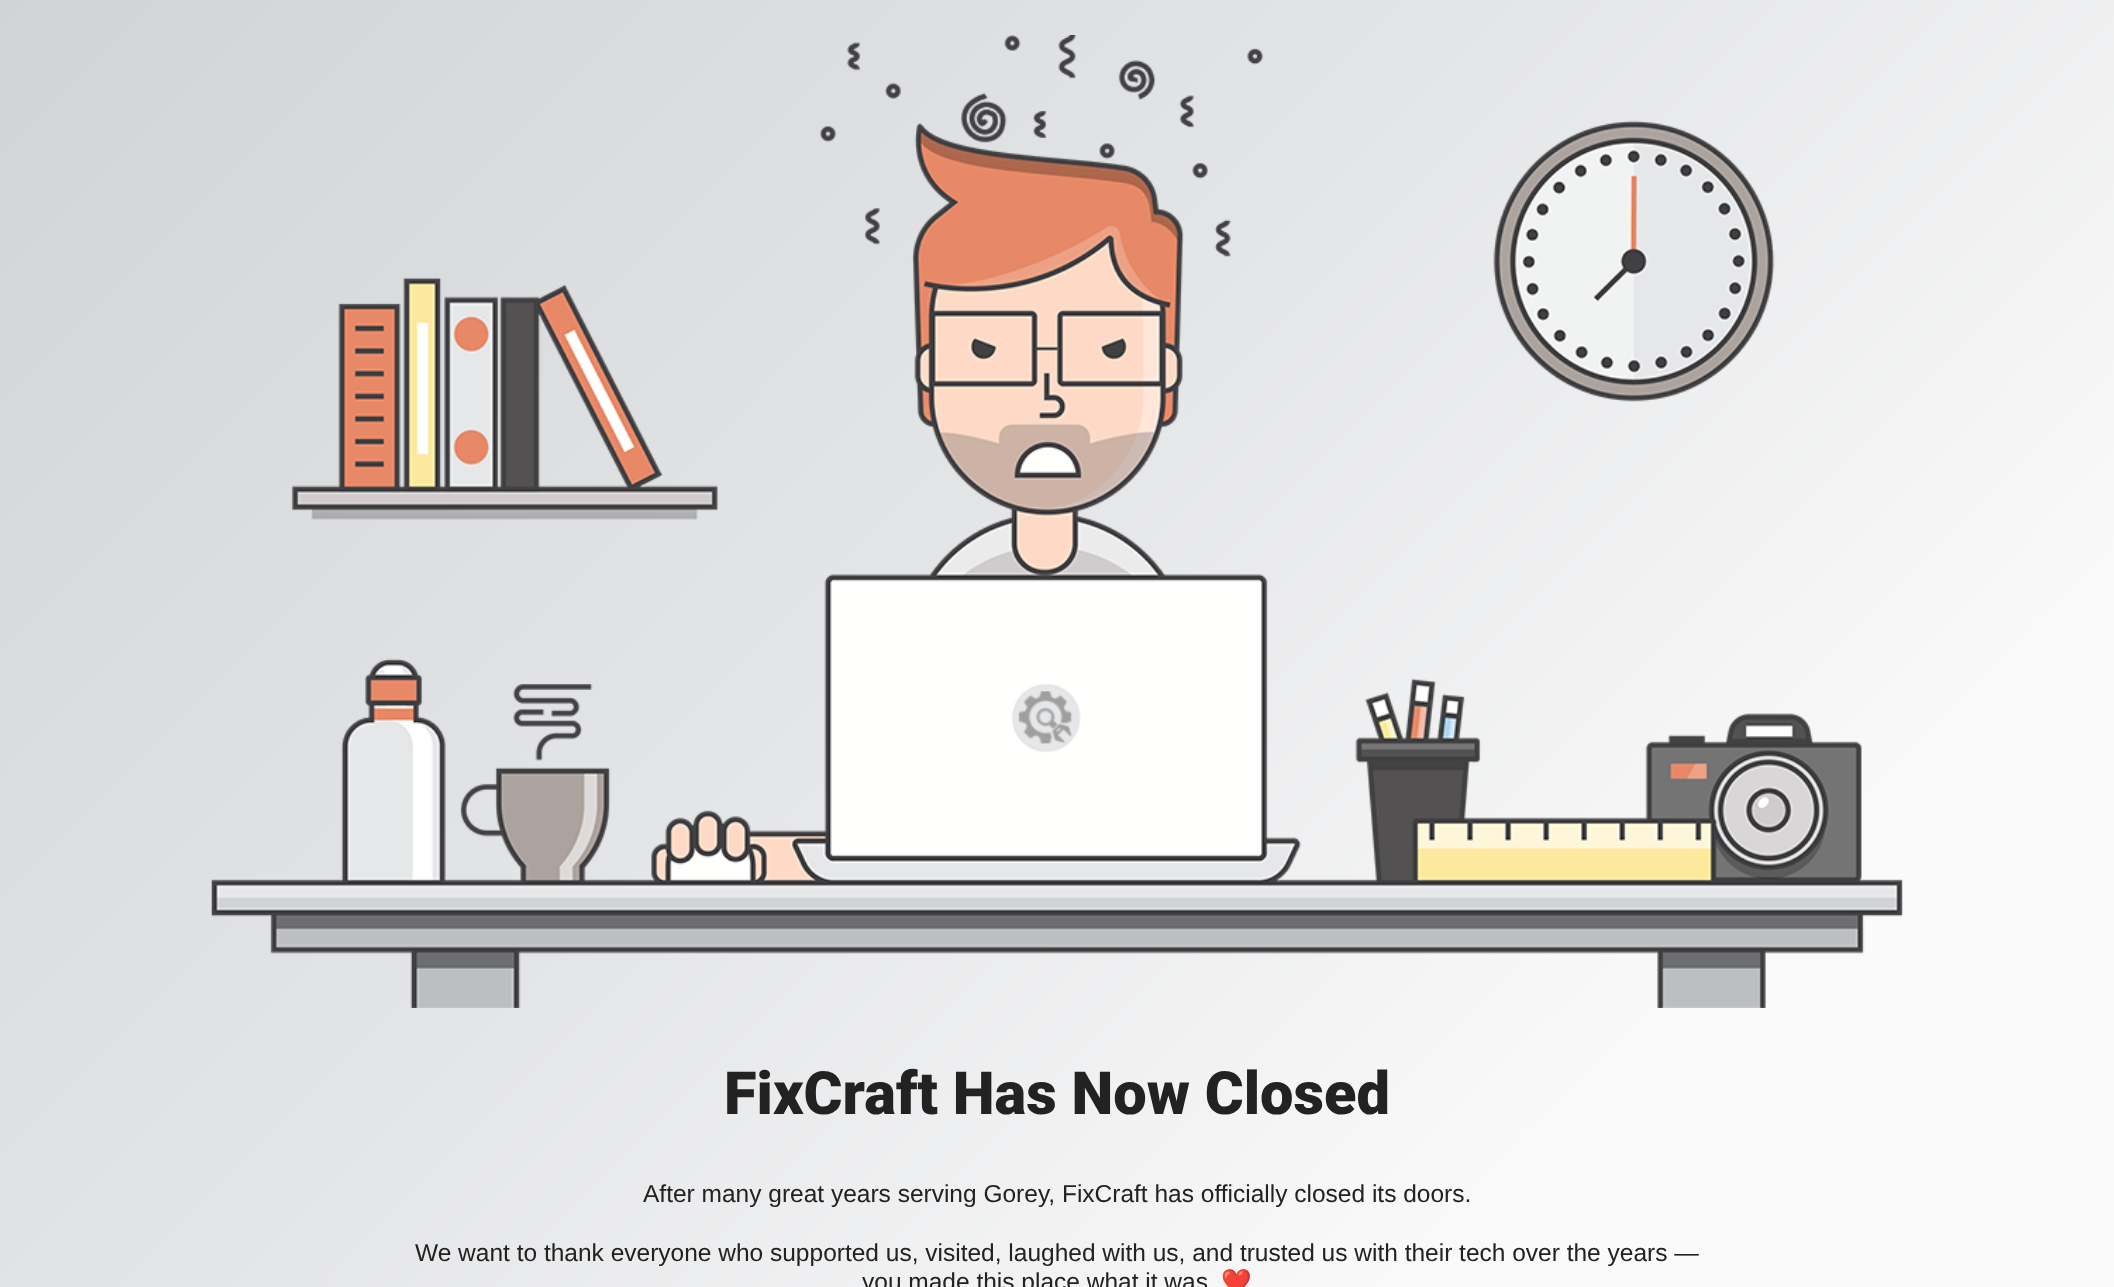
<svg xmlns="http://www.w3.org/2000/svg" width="2114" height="1287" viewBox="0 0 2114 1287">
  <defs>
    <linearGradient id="g1" gradientUnits="userSpaceOnUse" x1="206" y1="-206" x2="1908" y2="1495"><stop offset="0" stop-color="rgb(210,211,213)"/><stop offset="0.44" stop-color="rgb(228,229,231)"/><stop offset="0.8" stop-color="rgb(250,250,250)"/></linearGradient>
  </defs>
  <rect width="100%" height="100%" fill="rgb(255,255,255)"/>
  <rect x="0" y="0" width="2114" height="1287" fill="url(#g1)"/>
  <image x="211" y="35" width="1692" height="973" href="pic1.png"/>
  <text x="724" y="1114" font-family="Roboto" font-size="59.5" font-weight="900" fill="rgb(34,34,34)">FixCraft Has Now Closed</text>
  <g font-family="Liberation Sans" font-size="24.5" fill="rgb(34,34,34)">
    <text x="643" y="1202">After many great years serving Gorey, FixCraft has officially closed its doors.</text>
    <text x="415" y="1261">We want to thank everyone who supported us, visited, laughed with us, and trusted us with their tech over the years —</text>
    <text x="862" y="1290">you made this place what it was</text>
  </g>
  <text x="1221" y="1290" font-family="Noto Color Emoji" font-size="24.5" fill="rgb(34,34,34)">❤️</text>
</svg>
